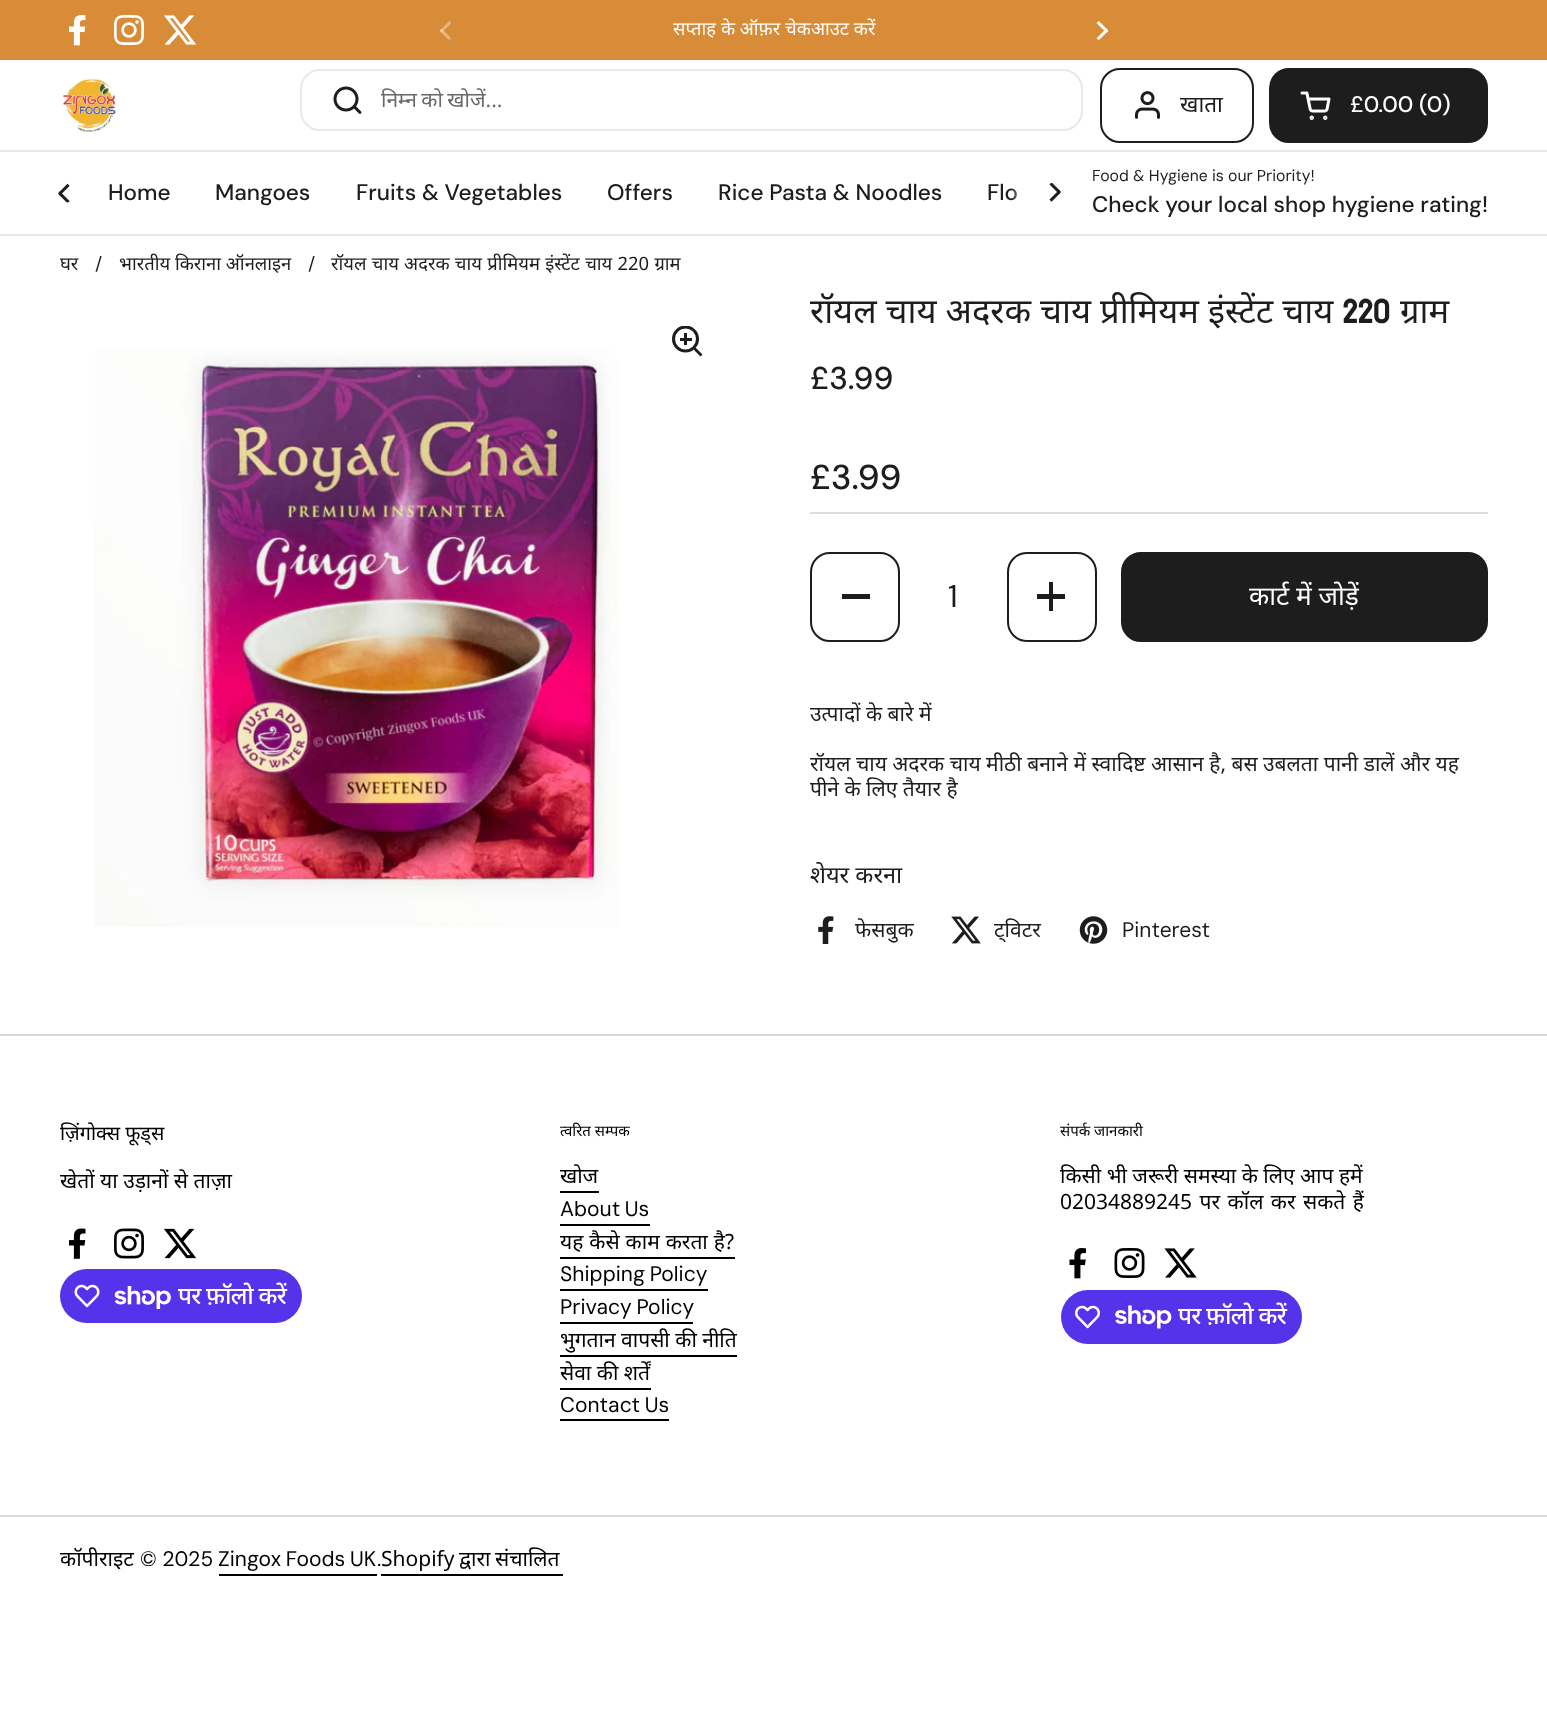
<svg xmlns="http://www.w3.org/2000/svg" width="1547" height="1723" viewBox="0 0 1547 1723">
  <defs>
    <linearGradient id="g1" gradientUnits="userSpaceOnUse" x1="1049" y1="193" x2="1011" y2="193"><stop offset="0.5" stop-color="rgb(255,255,255)"/><stop offset="1" stop-color="rgb(255,255,255)" stop-opacity="0"/></linearGradient>
    <clipPath id="clip1"><rect x="672" y="326" width="32" height="31"/></clipPath>
  </defs>
  <rect width="100%" height="100%" fill="rgb(255,255,255)"/>
  <rect x="0" y="0" width="1547" height="60" fill="rgb(216,140,56)"/>
  <image x="69" y="15" width="17" height="31" href="pic1.png"/>
  <image x="114" y="15" width="30" height="30" href="pic2.png"/>
  <image x="164" y="15" width="33" height="30" href="pic3.png"/>
  <image x="439" y="21" width="13" height="19" href="pic4.png"/>
  <text x="673" y="35" font-family="Noto Sans" font-size="18.4" fill="rgb(255,255,255)">सप्ताह के ऑफ़र चेकआउट करें</text>
  <image x="1096" y="21" width="13" height="19" href="pic5.png"/>
  <rect x="0" y="150" width="1547" height="2" fill="rgb(232,232,232)"/>
  <image x="63" y="79" width="53" height="53" href="pic6.png"/>
  <rect x="301" y="70" width="781" height="60" rx="19" fill="none" stroke="rgb(232,232,232)" stroke-width="2"/>
  <image x="333" y="86" width="29" height="28" href="pic7.png"/>
  <text x="381" y="107" word-spacing="-1" font-family="Noto Sans" font-size="21" fill="rgb(106,106,106)">निम्न को खोजें...</text>
  <rect x="1101" y="69" width="152" height="73" rx="19" fill="none" stroke="rgb(29,29,29)" stroke-width="2"/>
  <image x="1135" y="91" width="25" height="28" href="pic8.png"/>
  <text x="1180" y="112" font-family="Noto Sans" font-size="22.5" fill="rgb(29,29,29)">खाता</text>
  <rect x="1270" y="69" width="217" height="73" rx="19" fill="rgb(29,29,29)" stroke="rgb(29,29,29)" stroke-width="2"/>
  <image x="1300" y="91" width="31" height="29" href="pic9.png"/>
  <g font-family="'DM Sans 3'" font-size="22.5" font-weight="500" fill="rgb(255,255,255)">
    <text x="1350" y="112">£0.00</text>
    <text x="1419" y="112">(0</text>
    <text x="1442" y="112">)</text>
  </g>
  <rect x="0" y="234" width="1547" height="2" fill="rgb(232,232,232)"/>
  <image x="58" y="183" width="12" height="20" href="pic10.png"/>
  <g font-family="'DM Sans 3'" font-size="22.5" font-weight="500" fill="rgb(29,29,29)">
    <text x="108" y="200">Home</text>
    <text x="215" y="200">Mangoes</text>
    <text x="356" y="200">Fruits &amp; Vegetables</text>
    <text x="607" y="200">Offers</text>
    <text x="718" y="200">Rice Pasta &amp; Noodles</text>
    <text x="987" y="200">Flo</text>
  </g>
  <rect x="1011" y="188" width="7" height="13" fill="url(#g1)"/>
  <image x="1049" y="183" width="12" height="19" href="pic11.png"/>
  <text x="1092" y="181" font-family="'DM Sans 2'" font-size="15.75" fill="rgb(29,29,29)">Food &amp; Hygiene is our Priority!</text>
  <text x="1092" y="212" font-family="'DM Sans 3'" font-size="22.5" font-weight="500" fill="rgb(29,29,29)">Check your local shop hygiene rating!</text>
  <text x="60" y="270" font-family="Noto Sans" font-size="18.4" fill="rgb(29,29,29)">घर</text>
  <text x="95" y="270" font-family="'DM Sans 3'" font-size="18.4" fill="rgb(29,29,29)">/</text>
  <text x="119" y="270" font-family="Noto Sans" font-size="18.4" fill="rgb(29,29,29)">भारतीय किराना ऑनलाइन</text>
  <text x="308" y="270" font-family="'DM Sans 3'" font-size="18.4" fill="rgb(29,29,29)">/</text>
  <text x="331" y="270" word-spacing="0.5" font-family="Noto Sans" font-size="18.4" fill="rgb(29,29,29)">रॉयल चाय अदरक चाय प्रीमियम इंस्टेंट चाय 220 ग्राम</text>
  <g clip-path="url(#clip1)">
    <circle cx="685.5" cy="339" r="12" fill="none" stroke="rgb(29,29,29)" stroke-width="3"/>
  </g>
  <rect x="684" y="333" width="3" height="12" fill="rgb(29,29,29)"/>
  <rect x="680" y="338" width="12" height="3" fill="rgb(29,29,29)"/>
  <path d="M693.5 349.5L695.5 347.5L702.5 354.5L700.5 356.5Z" fill="rgb(29,29,29)"/>
  <image x="94" y="348" width="526" height="579" href="pic12.png"/>
  <text x="810" y="323" font-family="Noto Sans" font-size="34.6" fill="rgb(29,29,29)">रॉयल चाय अदरक चाय प्रीमियम इंस्टेंट चाय</text>
  <text x="1343" y="323" font-family="Bayon" font-size="34.6" fill="rgb(29,29,29)">220</text>
  <text x="1400" y="323" font-family="Noto Sans" font-size="34.6" fill="rgb(29,29,29)">ग्राम</text>
  <text x="810" y="389" font-family="DM Sans" font-size="31.5" font-weight="500" fill="rgb(29,29,29)">£3.99</text>
  <text x="810" y="489" font-family="'DM Sans 2'" font-size="34.6" font-weight="500" fill="rgb(29,29,29)">£3.99</text>
  <rect x="810" y="512" width="678" height="2" fill="rgb(221,221,221)"/>
  <rect x="811" y="553" width="88" height="88" rx="19" fill="none" stroke="rgb(29,29,29)" stroke-width="2"/>
  <rect x="842" y="594" width="28" height="5" fill="rgb(29,29,29)"/>
  <text x="948" y="607" font-family="DM Sans" font-size="31.5" fill="rgb(29,29,29)">1</text>
  <rect x="1008" y="553" width="88" height="88" rx="19" fill="none" stroke="rgb(29,29,29)" stroke-width="2"/>
  <rect x="1049" y="582" width="4" height="29" fill="rgb(29,29,29)"/>
  <rect x="1037" y="594" width="28" height="5" fill="rgb(29,29,29)"/>
  <rect x="1122" y="553" width="365" height="88" rx="19" fill="rgb(29,29,29)" stroke="rgb(29,29,29)" stroke-width="2"/>
  <text x="1249" y="605" font-family="Noto Sans" font-size="26.25" fill="rgb(255,255,255)">कार्ट में जोड़ें</text>
  <g font-family="Noto Sans" font-size="21" fill="rgb(29,29,29)">
    <text x="810" y="721">उत्पादों के बारे में</text>
    <text>
      <tspan x="810" y="771">रॉयल चाय अदरक चाय मीठी बनाने में स्वादिष्ट आसान है, बस उबलता पानी डालें और यह</tspan>
      <tspan x="810" y="796">पीने के लिए तैयार है</tspan>
    </text>
  </g>
  <text x="810" y="883" font-family="Noto Sans" font-size="23.5" fill="rgb(29,29,29)">शेयर करना</text>
  <image x="818" y="916" width="16" height="28" href="pic13.png"/>
  <text x="855" y="937" font-family="Noto Sans" font-size="21" fill="rgb(29,29,29)">फेसबुक</text>
  <image x="951" y="916" width="30" height="28" href="pic14.png"/>
  <text x="994" y="937" font-family="Noto Sans" font-size="21" fill="rgb(29,29,29)">ट्विटर</text>
  <image x="1079" y="916" width="29" height="28" href="pic15.png"/>
  <text x="1122" y="937" font-family="'DM Sans 2'" font-size="21" fill="rgb(29,29,29)">Pinterest</text>
  <rect x="0" y="1034" width="1547" height="2" fill="rgb(217,217,217)"/>
  <text x="60" y="1140" font-family="Noto Sans" font-size="19.75" fill="rgb(0,0,0)">ज़िंगोक्स फूड्स</text>
  <text x="60" y="1188" font-family="Noto Sans" font-size="21" fill="rgb(0,0,0)">खेतों या उड़ानों से ताज़ा</text>
  <image x="69" y="1228" width="17" height="31" href="pic16.png"/>
  <image x="114" y="1228" width="30" height="31" href="pic17.png"/>
  <image x="164" y="1228" width="33" height="31" href="pic18.png"/>
  <rect x="60" y="1269" width="242" height="54" rx="27" fill="rgb(84,51,235)"/>
  <image x="74" y="1284" width="26" height="24" href="pic19.png"/>
  <image x="114" y="1286" width="57" height="23" href="pic20.png"/>
  <text x="178" y="1304" font-family="Noto Sans" font-size="24" font-weight="500" letter-spacing="-0.75" fill="rgb(255,255,255)">पर फ़ॉलो करें</text>
  <text x="560" y="1136" font-family="Noto Sans" font-size="15" fill="rgb(0,0,0)">त्वरित सम्पक</text>
  <text x="560" y="1183" font-family="Noto Sans" font-size="21" fill="rgb(0,0,0)">खोज</text>
  <rect x="560" y="1191" width="39" height="2" fill="rgb(0,0,0)"/>
  <text x="560" y="1216" word-spacing="-1" font-family="'DM Sans 2'" font-size="21" fill="rgb(0,0,0)">About Us</text>
  <rect x="560" y="1224" width="90" height="2" fill="rgb(0,0,0)"/>
  <text x="560" y="1249" word-spacing="0.5" font-family="Noto Sans" font-size="21" fill="rgb(0,0,0)">यह कैसे काम करता है?</text>
  <rect x="560" y="1257" width="175" height="2" fill="rgb(0,0,0)"/>
  <text x="560" y="1281" word-spacing="-1" font-family="'DM Sans 2'" font-size="21" fill="rgb(0,0,0)">Shipping Policy</text>
  <rect x="560" y="1289" width="148" height="2" fill="rgb(0,0,0)"/>
  <text x="560" y="1314" word-spacing="-1" font-family="'DM Sans 2'" font-size="21" fill="rgb(0,0,0)">Privacy Policy</text>
  <rect x="560" y="1322" width="133" height="2" fill="rgb(0,0,0)"/>
  <text x="560" y="1347" font-family="Noto Sans" font-size="21" fill="rgb(0,0,0)">भुगतान वापसी की नीति</text>
  <rect x="560" y="1355" width="177" height="2" fill="rgb(0,0,0)"/>
  <text x="560" y="1380" font-family="Noto Sans" font-size="21" fill="rgb(0,0,0)">सेवा की शर्तें</text>
  <rect x="560" y="1388" width="91" height="2" fill="rgb(0,0,0)"/>
  <text x="560" y="1412" word-spacing="-1" font-family="'DM Sans 2'" font-size="21" fill="rgb(0,0,0)">Contact Us</text>
  <rect x="560" y="1419" width="109" height="2" fill="rgb(0,0,0)"/>
  <text x="1060" y="1136" font-family="Noto Sans" font-size="15" fill="rgb(0,0,0)">संपर्क जानकारी</text>
  <g font-family="Noto Sans" font-size="21" fill="rgb(0,0,0)">
    <text>
      <tspan x="1060" y="1183">किसी भी जरूरी समस्या के लिए आप हमें</tspan>
      <tspan x="1060" y="1209" word-spacing="2">02034889245 पर कॉल कर सकते हैं</tspan>
    </text>
  </g>
  <image x="1069" y="1248" width="17" height="31" href="pic21.png"/>
  <image x="1114" y="1248" width="31" height="30" href="pic22.png"/>
  <image x="1164" y="1248" width="33" height="30" href="pic23.png"/>
  <rect x="1061" y="1290" width="241" height="54" rx="27" fill="rgb(84,51,235)"/>
  <image x="1075" y="1305" width="25" height="24" href="pic24.png"/>
  <image x="1115" y="1305" width="57" height="24" href="pic25.png"/>
  <text x="1178" y="1324" font-family="Noto Sans" font-size="24" font-weight="500" letter-spacing="-0.75" fill="rgb(255,255,255)">पर फ़ॉलो करें</text>
  <rect x="0" y="1515" width="1547" height="2" fill="rgb(217,217,217)"/>
  <text x="60" y="1566" font-family="Noto Sans" font-size="21" fill="rgb(0,0,0)">कॉपीराइट</text>
  <g font-family="'DM Sans 2'" font-size="21" fill="rgb(0,0,0)">
    <text x="140" y="1566">© 2025</text>
    <text x="218" y="1566" word-spacing="-1">Zingox Foods UK</text>
  </g>
  <rect x="219" y="1574" width="158" height="2" fill="rgb(0,0,0)"/>
  <text x="377" y="1566" font-family="'DM Sans 2'" font-size="21" fill="rgb(0,0,0)">.</text>
  <text x="381" y="1566" word-spacing="-1" font-family="Noto Sans" font-size="21" fill="rgb(0,0,0)">Shopify द्वारा संचालित</text>
  <rect x="381" y="1574" width="182" height="2" fill="rgb(0,0,0)"/>
</svg>
